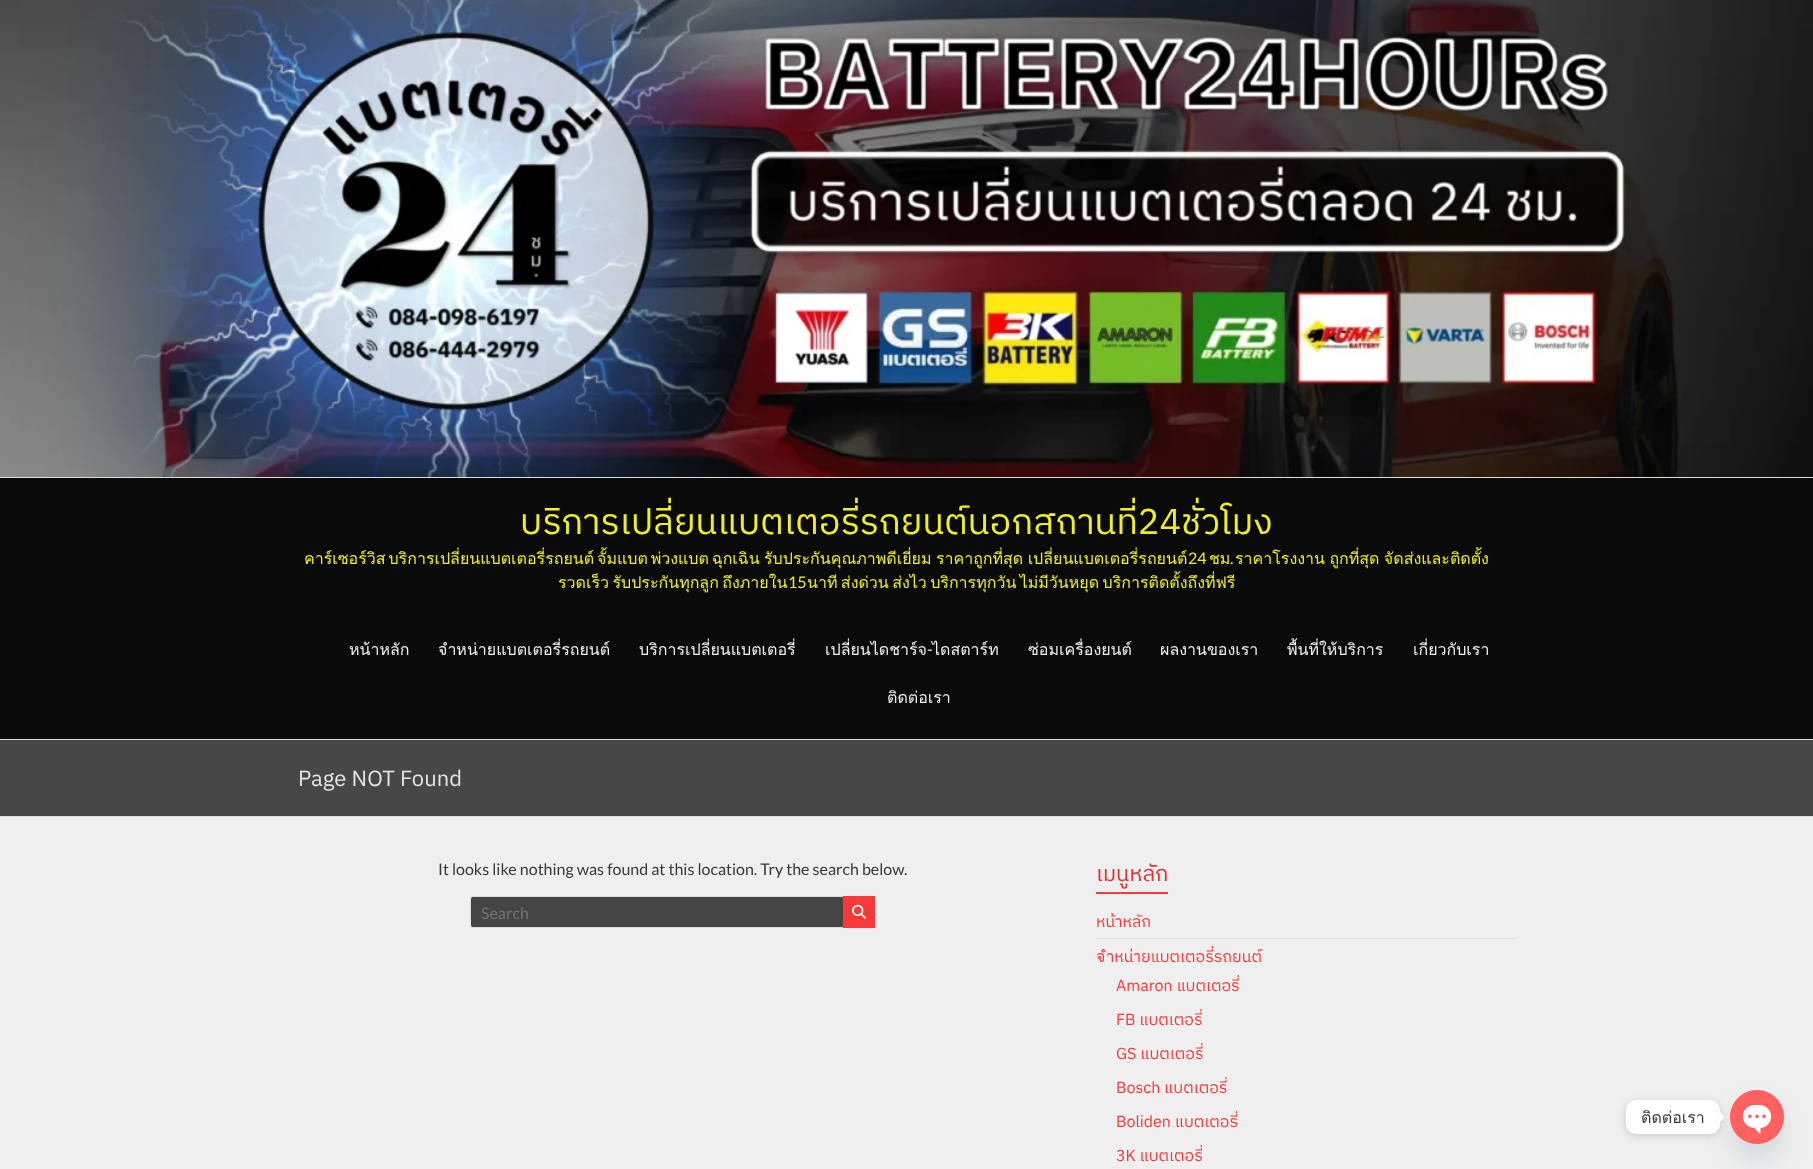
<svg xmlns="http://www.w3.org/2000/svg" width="1813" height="1169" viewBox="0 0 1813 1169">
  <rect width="100%" height="100%" fill="rgb(10,10,10)"/>
  <image x="0" y="0" width="1813" height="477" href="pic1.png"/>
  <rect x="0" y="477" width="1813" height="1" fill="rgb(221,221,221)"/>
  <rect x="0" y="739" width="1813" height="1" fill="rgb(221,221,221)"/>
  <text x="520" y="534" font-family="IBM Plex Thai" font-size="36" fill="rgb(238,238,34)">บริการเปลี่ยนแบตเตอรี่รถยนต์นอกสถานที่24ชั่วโมง</text>
  <g font-family="Loma" font-size="16" fill="rgb(238,238,34)">
    <text x="304" y="564" word-spacing="-2.5">คาร์เซอร์วิส บริการเปลี่ยนแบตเตอรี่รถยนต์ จั้มแบต พ่วงแบต ฉุกเฉิน</text>
    <text x="764" y="564" word-spacing="-1">รับประกันคุณภาพดีเยี่ยม ราคาถูกที่สุด เปลี่ยนแบตเตอรี่รถยนต์</text>
  </g>
  <text x="1188" y="564" font-family="Lato" font-size="16" fill="rgb(238,238,34)">24</text>
  <text x="1209" y="564" font-family="Loma" font-size="16" fill="rgb(238,238,34)">ชม</text>
  <text x="1230" y="564" font-family="Lato" font-size="16" fill="rgb(238,238,34)">.</text>
  <g font-family="Loma" font-size="16" fill="rgb(238,238,34)">
    <text x="1235" y="564" word-spacing="-1">ราคาโรงงาน ถูกที่สุด จัดส่งและติดตั้ง</text>
    <text x="558" y="588" word-spacing="-2">รวดเร็ว รับประกันทุกลูก ถึงภายใน</text>
  </g>
  <text x="788" y="588" font-family="Lato" font-size="16" fill="rgb(238,238,34)">15</text>
  <text x="807" y="588" word-spacing="-2" font-family="Loma" font-size="16" fill="rgb(238,238,34)">นาที ส่งด่วน ส่งไว บริการทุกวัน ไม่มีวันหยุด บริการติดตั้งถึงที่ฟรี</text>
  <g font-family="Loma" font-size="16" fill="rgb(239,239,239)">
    <text x="349" y="655">หน้าหลัก</text>
    <text x="438" y="655">จำหน่ายแบตเตอรี่รถยนต์</text>
    <text x="639" y="655">บริการเปลี่ยนแบตเตอรี่</text>
    <text x="825" y="655">เปลี่ยนไดชาร์จ</text>
  </g>
  <text x="927" y="655" font-family="Lato" font-size="16" fill="rgb(239,239,239)">-</text>
  <g font-family="Loma" font-size="16" fill="rgb(239,239,239)">
    <text x="932" y="655">ไดสตาร์ท</text>
    <text x="1028" y="655">ซ่อมเครื่องยนต์</text>
    <text x="1160" y="655">ผลงานของเรา</text>
    <text x="1287" y="655">พื้นที่ให้บริการ</text>
    <text x="1413" y="655">เกี่ยวกับเรา</text>
    <text x="887" y="703">ติดต่อเรา</text>
  </g>
  <rect x="0" y="740" width="1813" height="76" fill="rgb(71,71,71)"/>
  <rect x="0" y="816" width="1813" height="1" fill="rgb(221,221,221)"/>
  <text x="298" y="786" font-family="IBM Plex Thai" font-size="22" fill="rgb(229,229,229)">Page NOT Found</text>
  <rect x="0" y="817" width="1813" height="352" fill="rgb(239,239,239)"/>
  <text x="438" y="875" font-family="Lato" font-size="16" fill="rgb(56,56,56)">It looks like nothing was found at this location. Try the search below.</text>
  <rect x="470.5" y="896.5" width="374" height="31" rx="2.5" fill="rgb(68,68,68)" stroke="rgb(221,221,221)"/>
  <text x="481" y="919" font-family="Lato" font-size="16" fill="rgb(117,117,117)">Search</text>
  <rect x="843" y="896" width="32" height="32" fill="rgb(249,57,57)"/>
  <image x="852" y="904" width="14" height="15" href="pic2.png"/>
  <text x="1096" y="881" font-family="IBM Plex Thai" font-size="22" fill="rgb(221,51,51)">เมนูหลัก</text>
  <rect x="1096" y="892" width="72" height="2" fill="rgb(249,57,57)"/>
  <rect x="1096" y="938" width="420" height="1" fill="rgb(221,221,221)"/>
  <g font-family="IBM Plex Thai" font-size="16" fill="rgb(249,57,57)">
    <text x="1096" y="927">หน้าหลัก</text>
    <text x="1096" y="962">จำหน่ายแบตเตอรี่รถยนต์</text>
    <text x="1116" y="991">Amaron แบตเตอรี่</text>
    <text x="1116" y="1025">FB แบตเตอรี่</text>
    <text x="1116" y="1059">GS แบตเตอรี่</text>
    <text x="1116" y="1093">Bosch แบตเตอรี่</text>
    <text x="1116" y="1127">Boliden แบตเตอรี่</text>
    <text x="1116" y="1161">3K แบตเตอรี่</text>
  </g>
  <rect x="1626" y="1102" width="94" height="34" rx="10" fill="rgba(0,0,0,0.15)" filter="blur(4px)"/>
  <rect x="1626" y="1100" width="94" height="34" rx="10" fill="rgb(255,255,255)"/>
  <text x="1641" y="1123" font-family="Loma" font-size="16" fill="rgb(56,56,56)">ติดต่อเรา</text>
  <path d="M1720 1122V1112L1725 1117Z" fill="rgb(255,255,255)"/>
  <rect x="1730" y="1106" width="54" height="54" rx="27" fill="rgba(73,104,126,0.16)" filter="blur(12px)"/>
  <image x="1730" y="1090" width="54" height="54" href="pic3.png"/>
</svg>
